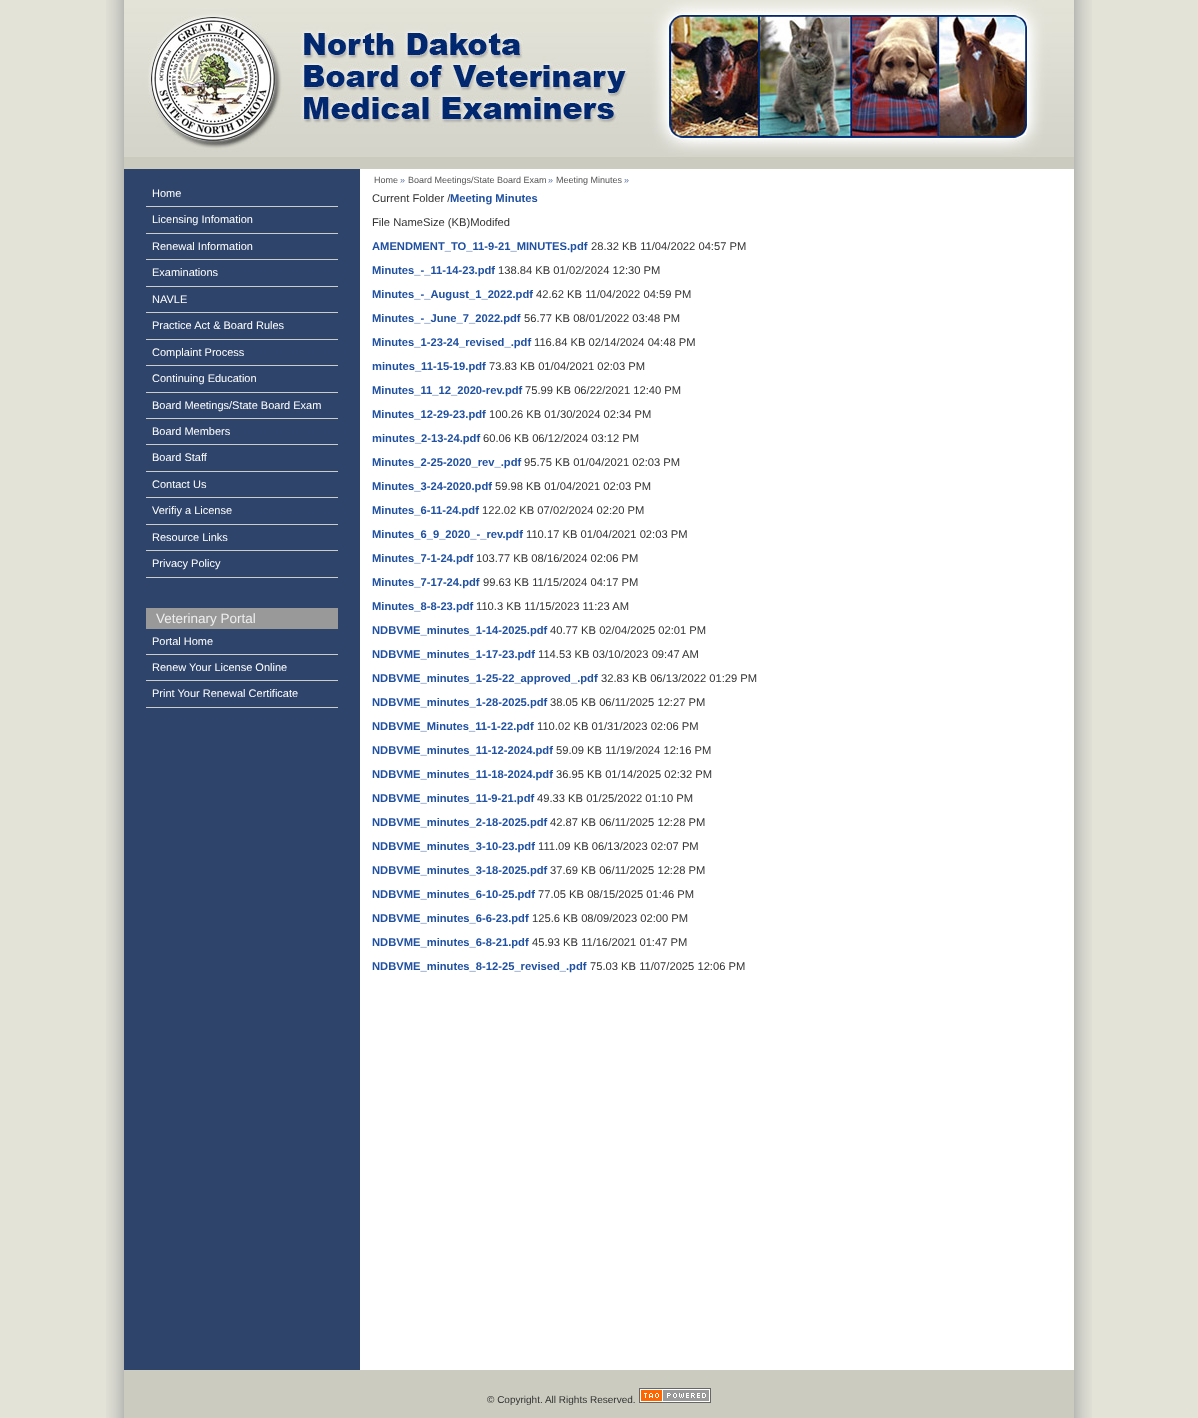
<svg xmlns="http://www.w3.org/2000/svg" width="1198" height="1418" viewBox="0 0 1198 1418">
  <rect width="100%" height="100%" fill="rgb(227,227,216)"/>
  <image x="106" y="0" width="986" height="1418" href="pic1.png"/>
  <image x="124" y="0" width="950" height="169" href="pic2.png"/>
  <rect x="146" y="206" width="192" height="1" fill="rgb(204,204,204)"/>
  <text x="152" y="197" font-family="Liberation Sans" font-size="11" fill="rgb(255,255,255)">Home</text>
  <rect x="146" y="233" width="192" height="1" fill="rgb(204,204,204)"/>
  <text x="152" y="223" font-family="Liberation Sans" font-size="11" fill="rgb(255,255,255)">Licensing Infomation</text>
  <rect x="146" y="259" width="192" height="1" fill="rgb(204,204,204)"/>
  <text x="152" y="250" font-family="Liberation Sans" font-size="11" fill="rgb(255,255,255)">Renewal Information</text>
  <rect x="146" y="286" width="192" height="1" fill="rgb(204,204,204)"/>
  <text x="152" y="276" font-family="Liberation Sans" font-size="11" fill="rgb(255,255,255)">Examinations</text>
  <rect x="146" y="312" width="192" height="1" fill="rgb(204,204,204)"/>
  <text x="152" y="303" font-family="Liberation Sans" font-size="11" fill="rgb(255,255,255)">NAVLE</text>
  <rect x="146" y="339" width="192" height="1" fill="rgb(204,204,204)"/>
  <text x="152" y="329" font-family="Liberation Sans" font-size="11" fill="rgb(255,255,255)">Practice Act &amp; Board Rules</text>
  <rect x="146" y="365" width="192" height="1" fill="rgb(204,204,204)"/>
  <text x="152" y="356" font-family="Liberation Sans" font-size="11" fill="rgb(255,255,255)">Complaint Process</text>
  <rect x="146" y="392" width="192" height="1" fill="rgb(204,204,204)"/>
  <text x="152" y="382" font-family="Liberation Sans" font-size="11" fill="rgb(255,255,255)">Continuing Education</text>
  <rect x="146" y="418" width="192" height="1" fill="rgb(204,204,204)"/>
  <text x="152" y="409" font-family="Liberation Sans" font-size="11" fill="rgb(255,255,255)">Board Meetings/State Board Exam</text>
  <rect x="146" y="444" width="192" height="1" fill="rgb(204,204,204)"/>
  <text x="152" y="435" font-family="Liberation Sans" font-size="11" fill="rgb(255,255,255)">Board Members</text>
  <rect x="146" y="471" width="192" height="1" fill="rgb(204,204,204)"/>
  <text x="152" y="461" font-family="Liberation Sans" font-size="11" fill="rgb(255,255,255)">Board Staff</text>
  <rect x="146" y="497" width="192" height="1" fill="rgb(204,204,204)"/>
  <text x="152" y="488" font-family="Liberation Sans" font-size="11" fill="rgb(255,255,255)">Contact Us</text>
  <rect x="146" y="524" width="192" height="1" fill="rgb(204,204,204)"/>
  <text x="152" y="514" font-family="Liberation Sans" font-size="11" fill="rgb(255,255,255)">Verifiy a License</text>
  <rect x="146" y="550" width="192" height="1" fill="rgb(204,204,204)"/>
  <text x="152" y="541" font-family="Liberation Sans" font-size="11" fill="rgb(255,255,255)">Resource Links</text>
  <rect x="146" y="577" width="192" height="1" fill="rgb(204,204,204)"/>
  <text x="152" y="567" font-family="Liberation Sans" font-size="11" fill="rgb(255,255,255)">Privacy Policy</text>
  <rect x="146" y="608" width="192" height="21" fill="rgb(153,153,153)"/>
  <text x="156" y="623" font-family="Liberation Sans" font-size="13.5" fill="rgb(238,238,238)">Veterinary Portal</text>
  <rect x="146" y="654" width="192" height="1" fill="rgb(204,204,204)"/>
  <text x="152" y="645" font-family="Liberation Sans" font-size="11" fill="rgb(255,255,255)">Portal Home</text>
  <rect x="146" y="680" width="192" height="1" fill="rgb(204,204,204)"/>
  <text x="152" y="671" font-family="Liberation Sans" font-size="11" fill="rgb(255,255,255)">Renew Your License Online</text>
  <rect x="146" y="707" width="192" height="1" fill="rgb(204,204,204)"/>
  <text x="152" y="697" font-family="Liberation Sans" font-size="11" fill="rgb(255,255,255)">Print Your Renewal Certificate</text>
  <text x="374" y="183" font-family="Liberation Sans" font-size="9" fill="rgb(85,85,85)">Home</text>
  <text x="400" y="183" font-family="Liberation Sans" font-size="9" fill="rgb(93,114,158)">»</text>
  <text x="408" y="183" font-family="Liberation Sans" font-size="9" fill="rgb(85,85,85)">Board Meetings/State Board Exam</text>
  <text x="548" y="183" font-family="Liberation Sans" font-size="9" fill="rgb(93,114,158)">»</text>
  <text x="556" y="183" font-family="Liberation Sans" font-size="9" fill="rgb(85,85,85)">Meeting Minutes</text>
  <text x="624" y="183" font-family="Liberation Sans" font-size="9" fill="rgb(93,114,158)">»</text>
  <text x="372" y="202" font-family="Liberation Sans" font-size="11.2" fill="rgb(51,51,51)">Current Folder /</text>
  <text x="450" y="202" font-family="Liberation Sans" font-size="11.2" font-weight="bold" fill="rgb(32,80,160)">Meeting Minutes</text>
  <text x="372" y="226" font-family="Liberation Sans" font-size="11.2" fill="rgb(51,51,51)">File NameSize (KB)Modifed</text>
  <text x="372" y="250" font-family="Liberation Sans" font-size="11.2" font-weight="bold" fill="rgb(32,80,160)">AMENDMENT_TO_11-9-21_MINUTES.pdf</text>
  <text x="591" y="250" font-family="Liberation Sans" font-size="11.2" fill="rgb(51,51,51)">28.32 KB 11/04/2022 04:57 PM</text>
  <text x="372" y="274" font-family="Liberation Sans" font-size="11.2" font-weight="bold" fill="rgb(32,80,160)">Minutes_-_11-14-23.pdf</text>
  <text x="498" y="274" font-family="Liberation Sans" font-size="11.2" fill="rgb(51,51,51)">138.84 KB 01/02/2024 12:30 PM</text>
  <text x="372" y="298" font-family="Liberation Sans" font-size="11.2" font-weight="bold" fill="rgb(32,80,160)">Minutes_-_August_1_2022.pdf</text>
  <text x="536" y="298" font-family="Liberation Sans" font-size="11.2" fill="rgb(51,51,51)">42.62 KB 11/04/2022 04:59 PM</text>
  <text x="372" y="322" font-family="Liberation Sans" font-size="11.2" font-weight="bold" fill="rgb(32,80,160)">Minutes_-_June_7_2022.pdf</text>
  <text x="524" y="322" font-family="Liberation Sans" font-size="11.2" fill="rgb(51,51,51)">56.77 KB 08/01/2022 03:48 PM</text>
  <text x="372" y="346" font-family="Liberation Sans" font-size="11.2" font-weight="bold" fill="rgb(32,80,160)">Minutes_1-23-24_revised_.pdf</text>
  <text x="534" y="346" font-family="Liberation Sans" font-size="11.2" fill="rgb(51,51,51)">116.84 KB 02/14/2024 04:48 PM</text>
  <text x="372" y="370" font-family="Liberation Sans" font-size="11.2" font-weight="bold" fill="rgb(32,80,160)">minutes_11-15-19.pdf</text>
  <text x="489" y="370" font-family="Liberation Sans" font-size="11.2" fill="rgb(51,51,51)">73.83 KB 01/04/2021 02:03 PM</text>
  <text x="372" y="394" font-family="Liberation Sans" font-size="11.2" font-weight="bold" fill="rgb(32,80,160)">Minutes_11_12_2020-rev.pdf</text>
  <text x="525" y="394" font-family="Liberation Sans" font-size="11.2" fill="rgb(51,51,51)">75.99 KB 06/22/2021 12:40 PM</text>
  <text x="372" y="418" font-family="Liberation Sans" font-size="11.2" font-weight="bold" fill="rgb(32,80,160)">Minutes_12-29-23.pdf</text>
  <text x="489" y="418" font-family="Liberation Sans" font-size="11.2" fill="rgb(51,51,51)">100.26 KB 01/30/2024 02:34 PM</text>
  <text x="372" y="442" font-family="Liberation Sans" font-size="11.2" font-weight="bold" fill="rgb(32,80,160)">minutes_2-13-24.pdf</text>
  <text x="483" y="442" font-family="Liberation Sans" font-size="11.2" fill="rgb(51,51,51)">60.06 KB 06/12/2024 03:12 PM</text>
  <text x="372" y="466" font-family="Liberation Sans" font-size="11.2" font-weight="bold" fill="rgb(32,80,160)">Minutes_2-25-2020_rev_.pdf</text>
  <text x="524" y="466" font-family="Liberation Sans" font-size="11.2" fill="rgb(51,51,51)">95.75 KB 01/04/2021 02:03 PM</text>
  <text x="372" y="490" font-family="Liberation Sans" font-size="11.2" font-weight="bold" fill="rgb(32,80,160)">Minutes_3-24-2020.pdf</text>
  <text x="495" y="490" font-family="Liberation Sans" font-size="11.2" fill="rgb(51,51,51)">59.98 KB 01/04/2021 02:03 PM</text>
  <text x="372" y="514" font-family="Liberation Sans" font-size="11.2" font-weight="bold" fill="rgb(32,80,160)">Minutes_6-11-24.pdf</text>
  <text x="482" y="514" font-family="Liberation Sans" font-size="11.2" fill="rgb(51,51,51)">122.02 KB 07/02/2024 02:20 PM</text>
  <text x="372" y="538" font-family="Liberation Sans" font-size="11.2" font-weight="bold" fill="rgb(32,80,160)">Minutes_6_9_2020_-_rev.pdf</text>
  <text x="526" y="538" font-family="Liberation Sans" font-size="11.2" fill="rgb(51,51,51)">110.17 KB 01/04/2021 02:03 PM</text>
  <text x="372" y="562" font-family="Liberation Sans" font-size="11.2" font-weight="bold" fill="rgb(32,80,160)">Minutes_7-1-24.pdf</text>
  <text x="476" y="562" font-family="Liberation Sans" font-size="11.2" fill="rgb(51,51,51)">103.77 KB 08/16/2024 02:06 PM</text>
  <text x="372" y="586" font-family="Liberation Sans" font-size="11.2" font-weight="bold" fill="rgb(32,80,160)">Minutes_7-17-24.pdf</text>
  <text x="483" y="586" font-family="Liberation Sans" font-size="11.2" fill="rgb(51,51,51)">99.63 KB 11/15/2024 04:17 PM</text>
  <text x="372" y="610" font-family="Liberation Sans" font-size="11.2" font-weight="bold" fill="rgb(32,80,160)">Minutes_8-8-23.pdf</text>
  <text x="476" y="610" font-family="Liberation Sans" font-size="11.2" fill="rgb(51,51,51)">110.3 KB 11/15/2023 11:23 AM</text>
  <text x="372" y="634" font-family="Liberation Sans" font-size="11.2" font-weight="bold" fill="rgb(32,80,160)">NDBVME_minutes_1-14-2025.pdf</text>
  <text x="550" y="634" font-family="Liberation Sans" font-size="11.2" fill="rgb(51,51,51)">40.77 KB 02/04/2025 02:01 PM</text>
  <text x="372" y="658" font-family="Liberation Sans" font-size="11.2" font-weight="bold" fill="rgb(32,80,160)">NDBVME_minutes_1-17-23.pdf</text>
  <text x="538" y="658" font-family="Liberation Sans" font-size="11.2" fill="rgb(51,51,51)">114.53 KB 03/10/2023 09:47 AM</text>
  <text x="372" y="682" font-family="Liberation Sans" font-size="11.2" font-weight="bold" fill="rgb(32,80,160)">NDBVME_minutes_1-25-22_approved_.pdf</text>
  <text x="601" y="682" font-family="Liberation Sans" font-size="11.2" fill="rgb(51,51,51)">32.83 KB 06/13/2022 01:29 PM</text>
  <text x="372" y="706" font-family="Liberation Sans" font-size="11.2" font-weight="bold" fill="rgb(32,80,160)">NDBVME_minutes_1-28-2025.pdf</text>
  <text x="550" y="706" font-family="Liberation Sans" font-size="11.2" fill="rgb(51,51,51)">38.05 KB 06/11/2025 12:27 PM</text>
  <text x="372" y="730" font-family="Liberation Sans" font-size="11.2" font-weight="bold" fill="rgb(32,80,160)">NDBVME_Minutes_11-1-22.pdf</text>
  <text x="537" y="730" font-family="Liberation Sans" font-size="11.2" fill="rgb(51,51,51)">110.02 KB 01/31/2023 02:06 PM</text>
  <text x="372" y="754" font-family="Liberation Sans" font-size="11.2" font-weight="bold" fill="rgb(32,80,160)">NDBVME_minutes_11-12-2024.pdf</text>
  <text x="556" y="754" font-family="Liberation Sans" font-size="11.2" fill="rgb(51,51,51)">59.09 KB 11/19/2024 12:16 PM</text>
  <text x="372" y="778" font-family="Liberation Sans" font-size="11.2" font-weight="bold" fill="rgb(32,80,160)">NDBVME_minutes_11-18-2024.pdf</text>
  <text x="556" y="778" font-family="Liberation Sans" font-size="11.2" fill="rgb(51,51,51)">36.95 KB 01/14/2025 02:32 PM</text>
  <text x="372" y="802" font-family="Liberation Sans" font-size="11.2" font-weight="bold" fill="rgb(32,80,160)">NDBVME_minutes_11-9-21.pdf</text>
  <text x="537" y="802" font-family="Liberation Sans" font-size="11.2" fill="rgb(51,51,51)">49.33 KB 01/25/2022 01:10 PM</text>
  <text x="372" y="826" font-family="Liberation Sans" font-size="11.2" font-weight="bold" fill="rgb(32,80,160)">NDBVME_minutes_2-18-2025.pdf</text>
  <text x="550" y="826" font-family="Liberation Sans" font-size="11.2" fill="rgb(51,51,51)">42.87 KB 06/11/2025 12:28 PM</text>
  <text x="372" y="850" font-family="Liberation Sans" font-size="11.2" font-weight="bold" fill="rgb(32,80,160)">NDBVME_minutes_3-10-23.pdf</text>
  <text x="538" y="850" font-family="Liberation Sans" font-size="11.2" fill="rgb(51,51,51)">111.09 KB 06/13/2023 02:07 PM</text>
  <text x="372" y="874" font-family="Liberation Sans" font-size="11.2" font-weight="bold" fill="rgb(32,80,160)">NDBVME_minutes_3-18-2025.pdf</text>
  <text x="550" y="874" font-family="Liberation Sans" font-size="11.2" fill="rgb(51,51,51)">37.69 KB 06/11/2025 12:28 PM</text>
  <text x="372" y="898" font-family="Liberation Sans" font-size="11.2" font-weight="bold" fill="rgb(32,80,160)">NDBVME_minutes_6-10-25.pdf</text>
  <text x="538" y="898" font-family="Liberation Sans" font-size="11.2" fill="rgb(51,51,51)">77.05 KB 08/15/2025 01:46 PM</text>
  <text x="372" y="922" font-family="Liberation Sans" font-size="11.2" font-weight="bold" fill="rgb(32,80,160)">NDBVME_minutes_6-6-23.pdf</text>
  <text x="532" y="922" font-family="Liberation Sans" font-size="11.2" fill="rgb(51,51,51)">125.6 KB 08/09/2023 02:00 PM</text>
  <text x="372" y="946" font-family="Liberation Sans" font-size="11.2" font-weight="bold" fill="rgb(32,80,160)">NDBVME_minutes_6-8-21.pdf</text>
  <text x="532" y="946" font-family="Liberation Sans" font-size="11.2" fill="rgb(51,51,51)">45.93 KB 11/16/2021 01:47 PM</text>
  <text x="372" y="970" font-family="Liberation Sans" font-size="11.2" font-weight="bold" fill="rgb(32,80,160)">NDBVME_minutes_8-12-25_revised_.pdf</text>
  <text x="590" y="970" font-family="Liberation Sans" font-size="11.2" fill="rgb(51,51,51)">75.03 KB 11/07/2025 12:06 PM</text>
  <rect x="124" y="1370" width="950" height="48" fill="rgb(203,203,191)"/>
  <text x="487" y="1403" font-family="Liberation Sans" font-size="10" fill="rgb(51,51,51)">© Copyright. All Rights Reserved.</text>
  <image x="639" y="1388" width="72" height="15" href="pic3.png"/>
</svg>
